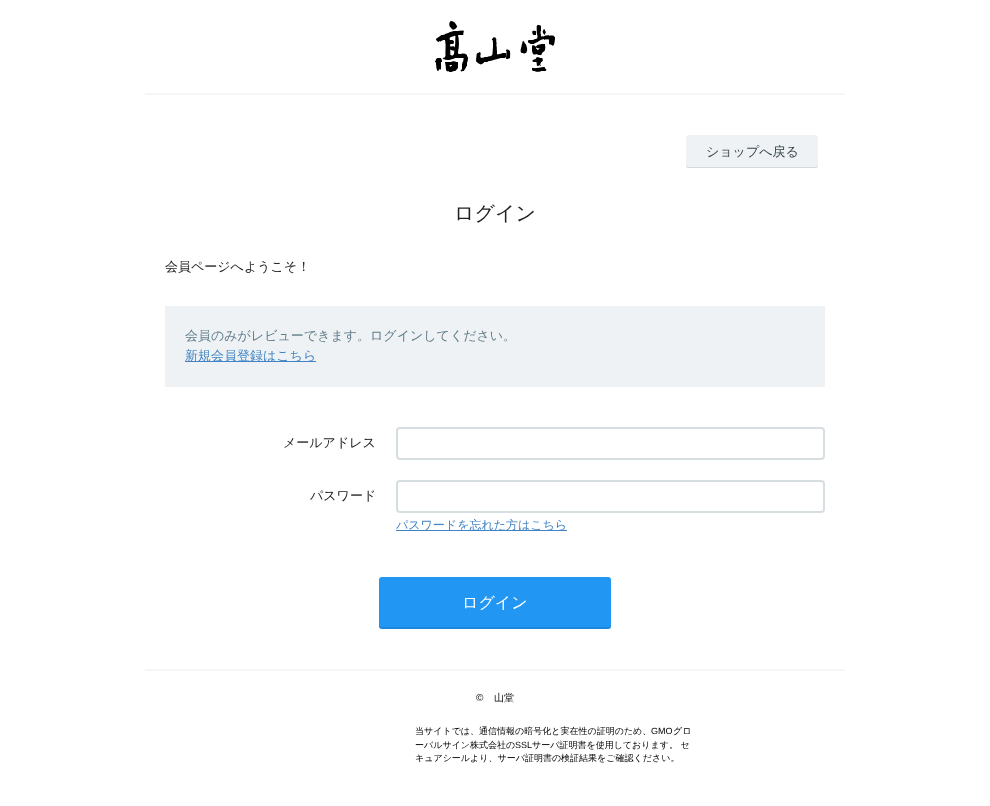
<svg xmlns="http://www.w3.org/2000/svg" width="990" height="806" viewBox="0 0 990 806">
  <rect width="100%" height="100%" fill="rgb(255,255,255)"/>
  <image x="435" y="21" width="120" height="51" href="pic1.png"/>
  <rect x="145" y="93" width="700" height="2" fill="rgb(246,246,246)"/>
  <rect x="145" y="669" width="700" height="2" fill="rgb(246,246,246)"/>
  <rect x="686" y="135" width="132" height="33" rx="3" fill="rgb(239,242,244)"/>
  <path d="M686 164C686 166 686 168 688 168H816C818 168 818 166 818 164C818 165 817 167 815 167H689C687 167 686 165 686 164Z" fill="rgba(0,0,0,0.1)"/>
  <text x="706" y="156" font-family="WenQuanYi Zen Hei" font-size="13" font-weight="500" fill="rgb(53,69,76)">ショップへ戻る</text>
  <text x="454" y="220" font-family="WenQuanYi Zen Hei" font-size="20" font-weight="500" fill="rgb(34,34,34)">ログイン</text>
  <text x="165" y="271" font-family="WenQuanYi Zen Hei" font-size="13" font-weight="500" fill="rgb(34,34,34)">会員ページへようこそ！</text>
  <rect x="165" y="306" width="660" height="81" fill="rgb(239,242,244)"/>
  <text x="185" y="340" font-family="WenQuanYi Zen Hei" font-size="13" font-weight="500" fill="rgb(96,125,139)">会員のみがレビューできます。ログインしてください。</text>
  <rect x="185" y="361" width="131" height="1" fill="rgb(65,131,196)"/>
  <text x="185" y="360" font-family="WenQuanYi Zen Hei" font-size="13" font-weight="500" fill="rgb(65,131,196)">新規会員登録はこちら</text>
  <text x="283" y="447" font-family="WenQuanYi Zen Hei" font-size="13" font-weight="500" fill="rgb(34,34,34)">メールアドレス</text>
  <rect x="397" y="428" width="427" height="31" rx="3" fill="none" stroke="rgb(215,222,226)" stroke-width="2"/>
  <text x="310" y="500" font-family="WenQuanYi Zen Hei" font-size="13" font-weight="500" fill="rgb(34,34,34)">パスワード</text>
  <rect x="397" y="481" width="427" height="31" rx="3" fill="none" stroke="rgb(215,222,226)" stroke-width="2"/>
  <rect x="396" y="530" width="171" height="1" fill="rgb(65,131,196)"/>
  <text x="396" y="529" font-family="WenQuanYi Zen Hei" font-size="12" font-weight="500" fill="rgb(65,131,196)">パスワードを忘れた方はこちら</text>
  <rect x="379" y="577" width="232" height="52" rx="3" fill="rgb(33,150,243)"/>
  <path d="M379 624V626C379 628 380 629 382 629H608C610 629 611 628 611 626V624C611 626 610 627 608 627H382C380 627 379 626 379 624Z" fill="rgba(0,0,0,0.1)"/>
  <text x="462" y="608" font-family="WenQuanYi Zen Hei" font-size="16" font-weight="500" fill="rgb(255,255,255)">ログイン</text>
  <text x="476" y="701" font-family="Liberation Sans" font-size="10" fill="rgb(0,0,0)">© </text>
  <text x="494" y="701" font-family="WenQuanYi Zen Hei" font-size="10" font-weight="500" fill="rgb(0,0,0)">山堂</text>
  <text x="415" y="734" font-family="WenQuanYi Zen Hei" font-size="9" font-weight="500" fill="rgb(0,0,0)">当サイトでは、通信情報の暗号化と実在性の証明のため、</text>
  <text x="651" y="734" font-family="Liberation Sans" font-size="9" fill="rgb(0,0,0)">GMO</text>
  <g font-family="WenQuanYi Zen Hei" font-size="9" font-weight="500" fill="rgb(0,0,0)">
    <text x="673" y="734">グロ</text>
    <text x="415" y="748">ーバルサイン株式会社の</text>
  </g>
  <text x="515" y="748" font-family="Liberation Sans" font-size="9" fill="rgb(0,0,0)">SSL</text>
  <g font-family="WenQuanYi Zen Hei" font-size="9" font-weight="500" fill="rgb(0,0,0)">
    <text x="532" y="748">サーバ証明書を使用しております。 セ</text>
    <text x="415" y="761">キュアシールより、サーバ証明書の検証結果をご確認ください。</text>
  </g>
</svg>
